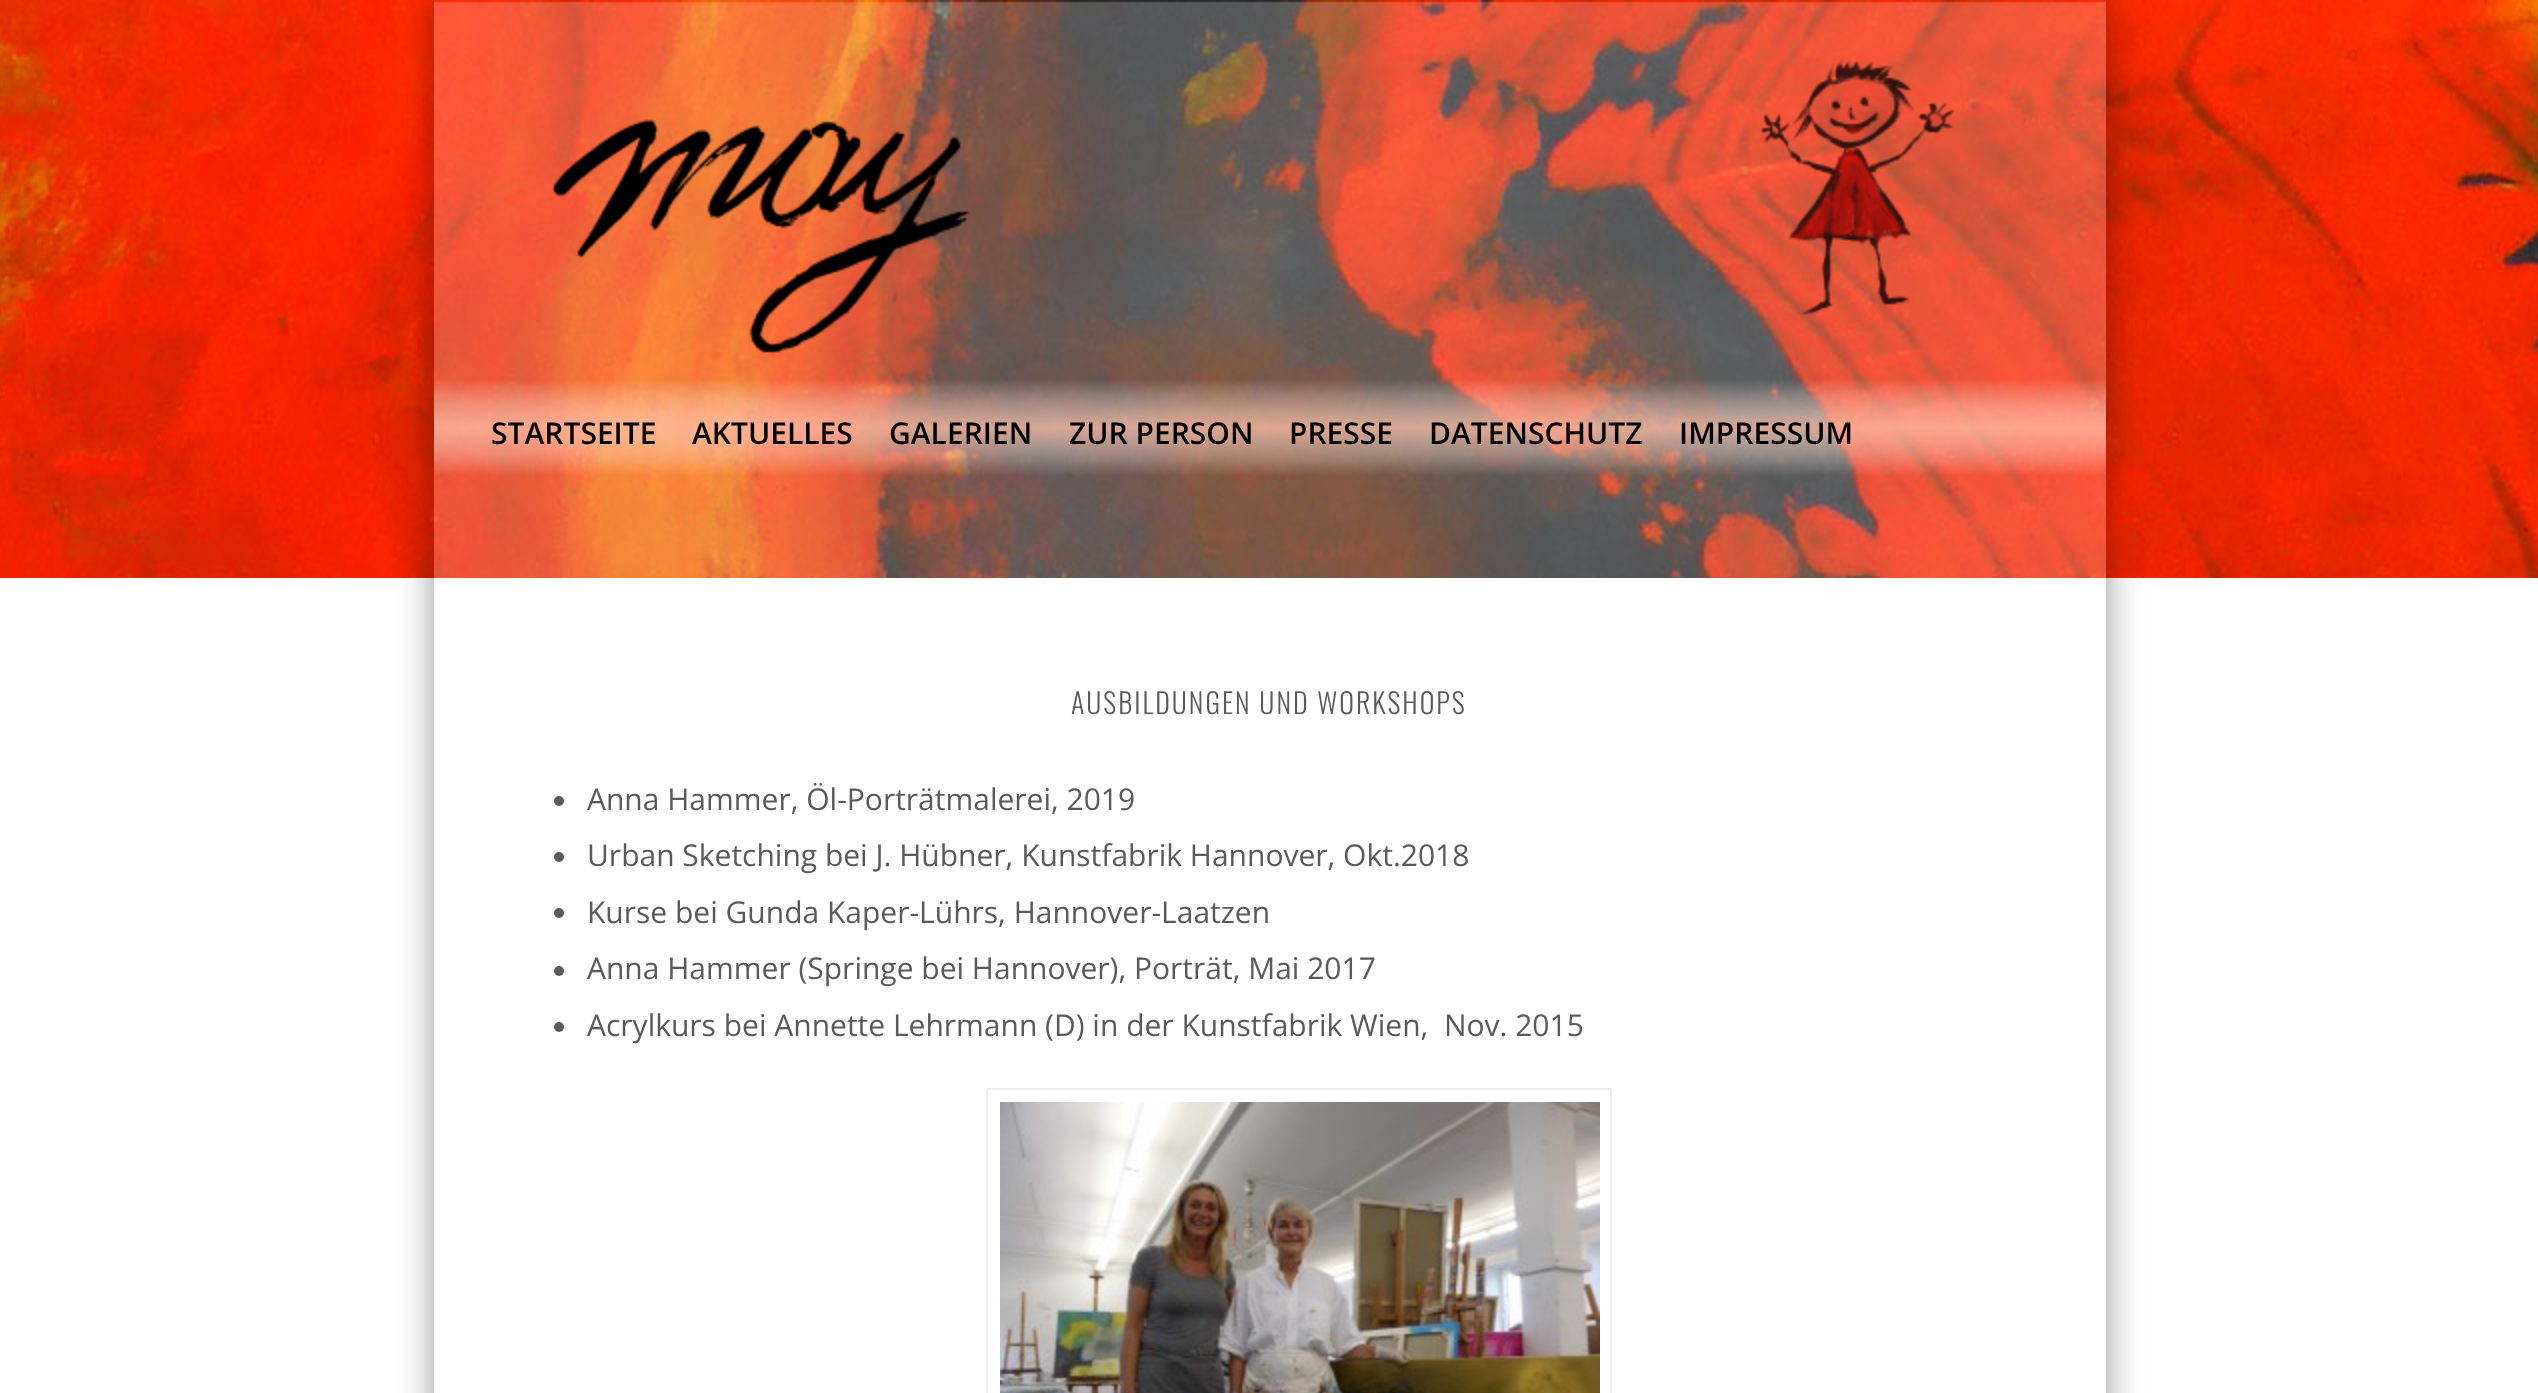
<svg xmlns="http://www.w3.org/2000/svg" width="2538" height="1393" viewBox="0 0 2538 1393">
  <rect width="100%" height="100%" fill="rgb(255,255,255)"/>
  <image x="0" y="0" width="2538" height="578" href="pic1.png"/>
  <rect x="434" y="0" width="1672" height="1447" fill="rgba(0,0,0,0.4)" filter="blur(18px)"/>
  <rect x="434" y="578" width="1672" height="815" fill="rgb(255,255,255)"/>
  <image x="434" y="0" width="1672" height="578" href="pic2.png"/>
  <g font-family="Open Sans" font-size="30" font-weight="600" fill="rgb(0,0,0)">
    <text x="491" y="444">STARTSEITE</text>
    <text x="692" y="444">AKTUELLES</text>
    <text x="889" y="444">GALERIEN</text>
    <text x="1069" y="444">ZUR PERSON</text>
    <text x="1289" y="444">PRESSE</text>
    <text x="1429" y="444">DATENSCHUTZ</text>
    <text x="1679" y="444">IMPRESSUM</text>
  </g>
  <text x="1071" y="714" font-family="Oswald" font-size="28" font-weight="300" letter-spacing="2" fill="rgb(90,90,90)">AUSBILDUNGEN UND WORKSHOPS</text>
  <circle cx="559" cy="801" r="5" fill="rgb(90,90,90)"/>
  <text x="587" y="810" font-family="Open Sans" font-size="30" fill="rgb(90,90,90)">Anna Hammer, Öl-Porträtmalerei, 2019</text>
  <circle cx="559" cy="857" r="5" fill="rgb(90,90,90)"/>
  <text x="587" y="866" font-family="Open Sans" font-size="30" fill="rgb(90,90,90)">Urban Sketching bei J. Hübner, Kunstfabrik Hannover, Okt.2018</text>
  <circle cx="559" cy="913" r="5" fill="rgb(90,90,90)"/>
  <text x="587" y="923" font-family="Open Sans" font-size="30" fill="rgb(90,90,90)">Kurse bei Gunda Kaper-Lührs, Hannover-Laatzen</text>
  <circle cx="559" cy="971" r="5" fill="rgb(90,90,90)"/>
  <text x="587" y="979" font-family="Open Sans" font-size="30" fill="rgb(90,90,90)">Anna Hammer (Springe bei Hannover), Porträt, Mai 2017</text>
  <circle cx="559" cy="1027" r="5" fill="rgb(90,90,90)"/>
  <text x="587" y="1036" font-family="Open Sans" font-size="30" fill="rgb(90,90,90)" xml:space="preserve">Acrylkurs bei Annette Lehrmann (D) in der Kunstfabrik Wien,  Nov. 2015</text>
  <rect x="987" y="1089" width="624" height="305" fill="none" stroke="rgb(238,238,238)" stroke-width="2"/>
  <image x="1000" y="1102" width="600" height="291" href="pic3.png"/>
</svg>
